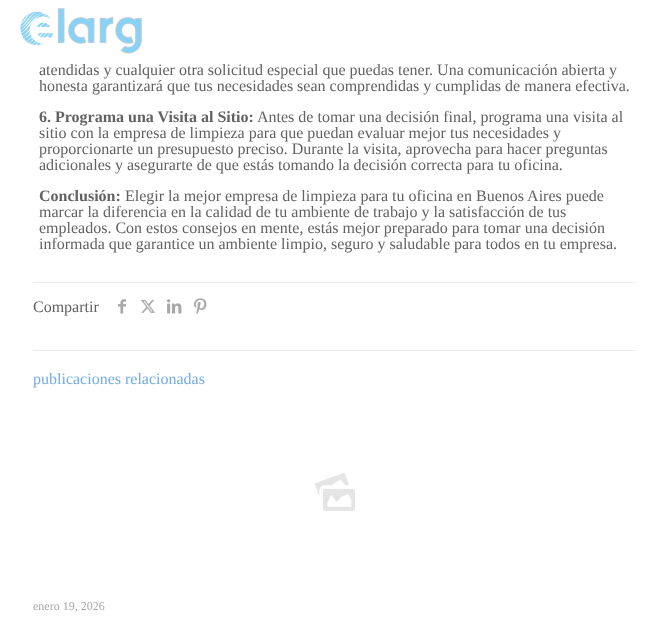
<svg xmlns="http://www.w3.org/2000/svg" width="669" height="619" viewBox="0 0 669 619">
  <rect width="100%" height="100%" fill="rgb(255,255,255)"/>
  <image x="20" y="8" width="122" height="46" href="pic1.png"/>
  <g font-family="Liberation Serif" font-size="16" fill="rgb(98,98,98)">
    <text>
      <tspan x="39" y="75">atendidas y cualquier otra solicitud especial que puedas tener. Una comunicación abierta y</tspan>
      <tspan x="39" y="91">honesta garantizará que tus necesidades sean comprendidas y cumplidas de manera efectiva.</tspan>
    </text>
  </g>
  <text x="39" y="122" font-family="Liberation Serif" font-size="16" font-weight="bold" fill="rgb(98,98,98)">6. Programa una Visita al Sitio:</text>
  <g font-family="Liberation Serif" font-size="16" fill="rgb(98,98,98)">
    <text x="257" y="122">Antes de tomar una decisión final, programa una visita al</text>
    <text>
      <tspan x="39" y="138">sitio con la empresa de limpieza para que puedan evaluar mejor tus necesidades y</tspan>
      <tspan x="39" y="154">proporcionarte un presupuesto preciso. Durante la visita, aprovecha para hacer preguntas</tspan>
      <tspan x="39" y="170">adicionales y asegurarte de que estás tomando la decisión correcta para tu oficina.</tspan>
    </text>
  </g>
  <text x="39" y="201" font-family="Liberation Serif" font-size="16" font-weight="bold" fill="rgb(98,98,98)">Conclusión:</text>
  <g font-family="Liberation Serif" font-size="16" fill="rgb(98,98,98)">
    <text x="125" y="201">Elegir la mejor empresa de limpieza para tu oficina en Buenos Aires puede</text>
    <text>
      <tspan x="39" y="217">marcar la diferencia en la calidad de tu ambiente de trabajo y la satisfacción de tus</tspan>
      <tspan x="39" y="233">empleados. Con estos consejos en mente, estás mejor preparado para tomar una decisión</tspan>
      <tspan x="39" y="249">informada que garantice un ambiente limpio, seguro y saludable para todos en tu empresa.</tspan>
    </text>
  </g>
  <rect x="33" y="282" width="603" height="1" fill="rgb(235,235,235)"/>
  <text x="33" y="312" font-family="Liberation Serif" font-size="16" fill="rgb(98,98,98)">Compartir</text>
  <image x="118" y="299" width="8" height="15" href="pic2.png"/>
  <image x="141" y="299" width="14" height="14" href="pic3.png"/>
  <image x="167" y="299" width="15" height="15" href="pic4.png"/>
  <image x="194" y="298" width="13" height="17" href="pic5.png"/>
  <rect x="33" y="350" width="603" height="1" fill="rgb(235,235,235)"/>
  <text x="33" y="384" font-family="Liberation Serif" font-size="16" fill="rgb(116,172,223)">publicaciones relacionadas</text>
  <image x="315" y="473" width="40" height="38" href="pic6.png"/>
  <text x="33" y="610" font-family="Liberation Serif" font-size="12" fill="rgb(168,168,168)">enero 19, 2026</text>
</svg>
